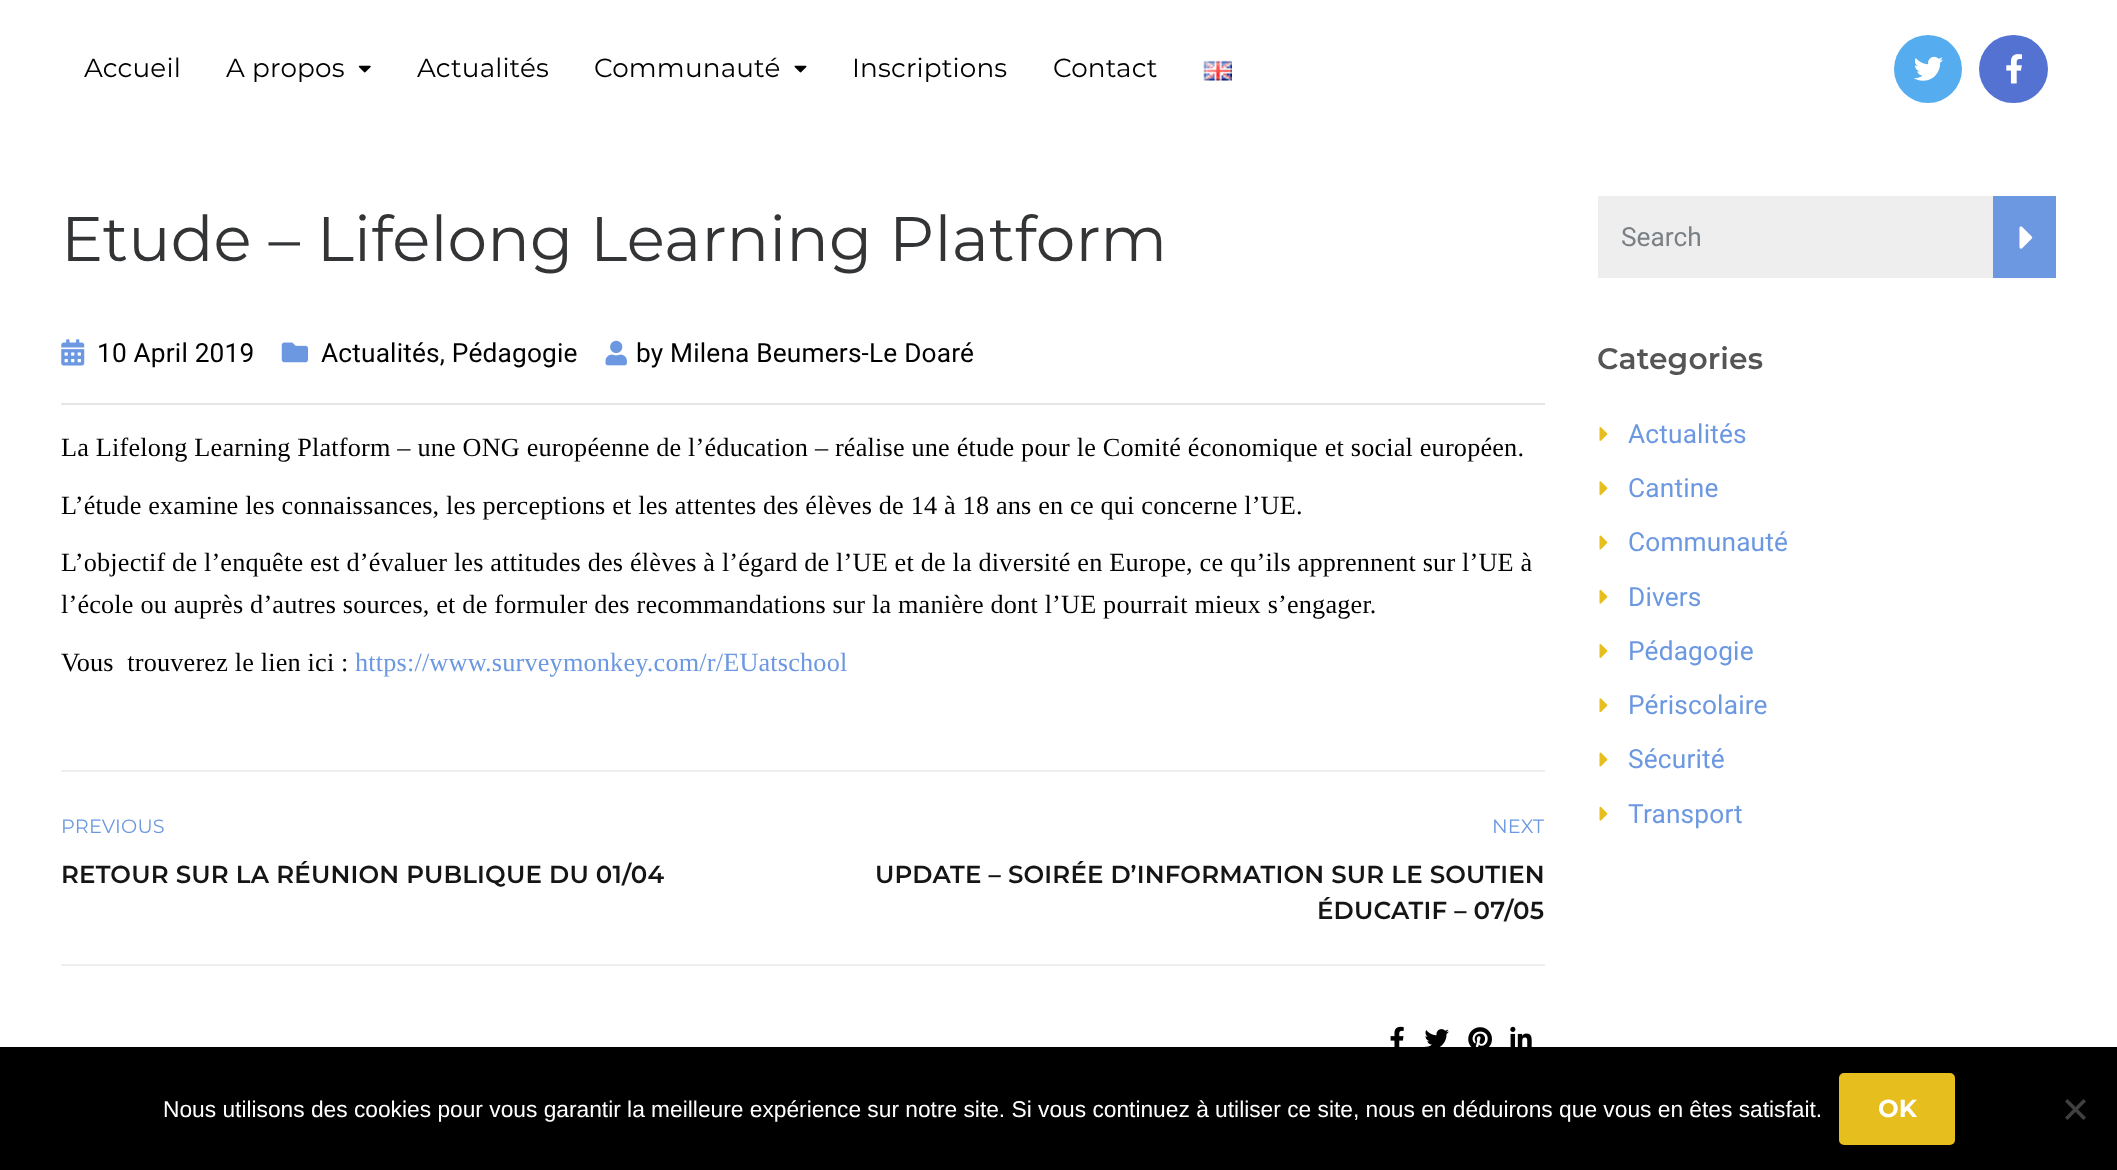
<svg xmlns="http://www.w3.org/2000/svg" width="2117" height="1170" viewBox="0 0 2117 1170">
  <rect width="100%" height="100%" fill="rgb(255,255,255)"/>
  <g font-family="Montserrat" font-size="26.25" letter-spacing="0.18" fill="rgb(0,0,0)">
    <text x="84" y="77">Accueil</text>
    <text x="226" y="77">A propos</text>
  </g>
  <image x="358" y="65" width="13" height="8" href="pic1.png"/>
  <g font-family="Montserrat" font-size="26.25" letter-spacing="0.18" fill="rgb(0,0,0)">
    <text x="417" y="77">Actualités</text>
    <text x="594" y="77">Communauté</text>
  </g>
  <image x="794" y="65" width="13" height="8" href="pic2.png"/>
  <g font-family="Montserrat" font-size="26.25" letter-spacing="0.18" fill="rgb(0,0,0)">
    <text x="852" y="77">Inscriptions</text>
    <text x="1053" y="77">Contact</text>
  </g>
  <image x="1203" y="60" width="29" height="21" href="pic3.png"/>
  <circle cx="1928" cy="69" r="34" fill="rgb(85,172,238)"/>
  <image x="1913" y="56" width="30" height="25" href="pic4.png"/>
  <rect x="1979" y="35" width="69" height="68" rx="34" fill="rgb(84,114,210)"/>
  <image x="2006" y="54" width="17" height="30" href="pic5.png"/>
  <text x="61" y="261" font-family="Montserrat" font-size="63" letter-spacing="0.18" fill="rgb(51,52,54)">Etude – Lifelong Learning Platform</text>
  <rect x="61" y="403" width="1484" height="2" fill="rgb(230,230,230)"/>
  <image x="61" y="339" width="24" height="27" href="pic6.png"/>
  <text x="97" y="362" font-family="Roboto" font-size="26.25" letter-spacing="0.18" fill="rgb(0,0,0)">10 April 2019</text>
  <image x="281" y="342" width="27" height="21" href="pic7.png"/>
  <text x="321" y="362" font-family="Roboto" font-size="26.25" letter-spacing="0.18" fill="rgb(0,0,0)">Actualités, Pédagogie</text>
  <image x="605" y="340" width="22" height="26" href="pic8.png"/>
  <text x="636" y="362" font-family="Roboto" font-size="26.25" letter-spacing="0.18" fill="rgb(0,0,0)">by Milena Beumers-Le Doaré</text>
  <g font-family="Liberation Serif" font-size="26.25" letter-spacing="0.18" fill="rgb(0,0,0)">
    <text x="61" y="456">La Lifelong Learning Platform – une ONG européenne de l’éducation – réalise une étude pour le Comité économique et social européen.</text>
    <text x="61" y="514">L’étude examine les connaissances, les perceptions et les attentes des élèves de 14 à 18 ans en ce qui concerne l’UE.</text>
    <text>
      <tspan x="61" y="571">L’objectif de l’enquête est d’évaluer les attitudes des élèves à l’égard de l’UE et de la diversité en Europe, ce qu’ils apprennent sur l’UE à</tspan>
      <tspan x="61" y="613">l’école ou auprès d’autres sources, et de formuler des recommandations sur la manière dont l’UE pourrait mieux s’engager.</tspan>
    </text>
    <text x="61" y="671" xml:space="preserve">Vous  trouverez le lien ici :</text>
  </g>
  <text x="355" y="671" font-family="Liberation Serif" font-size="26.25" letter-spacing="0.18" fill="rgb(108,152,225)">https://www.surveymonkey.com/r/EUatschool</text>
  <rect x="61" y="770" width="1484" height="2" fill="rgb(238,238,238)"/>
  <rect x="61" y="964" width="1484" height="2" fill="rgb(238,238,238)"/>
  <text x="61" y="833" font-family="Montserrat" font-size="19.25" letter-spacing="0.18" fill="rgb(108,152,225)">PREVIOUS</text>
  <text x="61" y="883" font-family="Montserrat" font-size="24.5" font-weight="600" letter-spacing="0.18" fill="rgb(21,21,21)">RETOUR SUR LA RÉUNION PUBLIQUE DU 01/04</text>
  <text x="1492" y="833" font-family="Montserrat" font-size="19.25" letter-spacing="0.18" fill="rgb(108,152,225)">NEXT</text>
  <g font-family="Montserrat" font-size="24.5" font-weight="600" letter-spacing="0.18" fill="rgb(21,21,21)">
    <text x="875" y="883">UPDATE – SOIRÉE D’INFORMATION SUR LE SOUTIEN</text>
    <text x="1317" y="919">ÉDUCATIF – 07/05</text>
  </g>
  <image x="1390" y="1026" width="14" height="21" href="pic9.png"/>
  <image x="1424" y="1029" width="25" height="18" href="pic10.png"/>
  <image x="1468" y="1027" width="24" height="20" href="pic11.png"/>
  <image x="1510" y="1026" width="22" height="21" href="pic12.png"/>
  <rect x="1598" y="196" width="395" height="82" fill="rgb(238,238,238)"/>
  <text x="1621" y="246" font-family="Roboto" font-size="26.25" fill="rgb(123,128,133)">Search</text>
  <rect x="1993" y="196" width="63" height="82" fill="rgb(108,152,225)"/>
  <image x="2019" y="226" width="14" height="23" href="pic13.png"/>
  <text x="1597" y="369" font-family="Montserrat" font-size="29.75" font-weight="600" letter-spacing="0.18" fill="rgb(85,85,85)">Categories</text>
  <image x="1599" y="427" width="9" height="14" href="pic14.png"/>
  <text x="1628" y="443" font-family="Roboto" font-size="26.25" letter-spacing="0.18" fill="rgb(108,152,225)">Actualités</text>
  <image x="1599" y="481" width="9" height="15" href="pic15.png"/>
  <text x="1628" y="497" font-family="Roboto" font-size="26.25" letter-spacing="0.18" fill="rgb(108,152,225)">Cantine</text>
  <image x="1599" y="535" width="9" height="15" href="pic16.png"/>
  <text x="1628" y="551" font-family="Roboto" font-size="26.25" letter-spacing="0.18" fill="rgb(108,152,225)">Communauté</text>
  <image x="1599" y="589" width="9" height="15" href="pic17.png"/>
  <text x="1628" y="606" font-family="Roboto" font-size="26.25" letter-spacing="0.18" fill="rgb(108,152,225)">Divers</text>
  <image x="1599" y="644" width="9" height="14" href="pic14.png"/>
  <text x="1628" y="660" font-family="Roboto" font-size="26.25" letter-spacing="0.18" fill="rgb(108,152,225)">Pédagogie</text>
  <image x="1599" y="698" width="9" height="15" href="pic15.png"/>
  <text x="1628" y="714" font-family="Roboto" font-size="26.25" letter-spacing="0.18" fill="rgb(108,152,225)">Périscolaire</text>
  <image x="1599" y="752" width="9" height="15" href="pic16.png"/>
  <text x="1628" y="768" font-family="Roboto" font-size="26.25" letter-spacing="0.18" fill="rgb(108,152,225)">Sécurité</text>
  <image x="1599" y="806" width="9" height="15" href="pic17.png"/>
  <text x="1628" y="823" font-family="Roboto" font-size="26.25" letter-spacing="0.18" fill="rgb(108,152,225)">Transport</text>
  <rect x="0" y="1047" width="2117" height="123" fill="rgb(0,0,0)"/>
  <text x="163" y="1117" font-family="Liberation Sans" font-size="22.75" fill="rgb(255,255,255)">Nous utilisons des cookies pour vous garantir la meilleure expérience sur notre site. Si vous continuez à utiliser ce site, nous en déduirons que vous en êtes satisfait.</text>
  <rect x="1840" y="1074" width="114" height="70" rx="4" fill="rgb(230,190,30)" stroke="rgb(230,190,30)" stroke-width="2"/>
  <text x="1878" y="1117" font-family="Montserrat" font-size="24.5" font-weight="bold" fill="rgb(255,255,255)">OK</text>
  <path d="M2083.5 1099L2086 1101.5L2067.5 1120L2065 1117.5Z" fill="rgb(64,64,64)"/>
  <path d="M2065 1101.5L2067.5 1099L2086 1117.5L2083.5 1120Z" fill="rgb(64,64,64)"/>
</svg>
